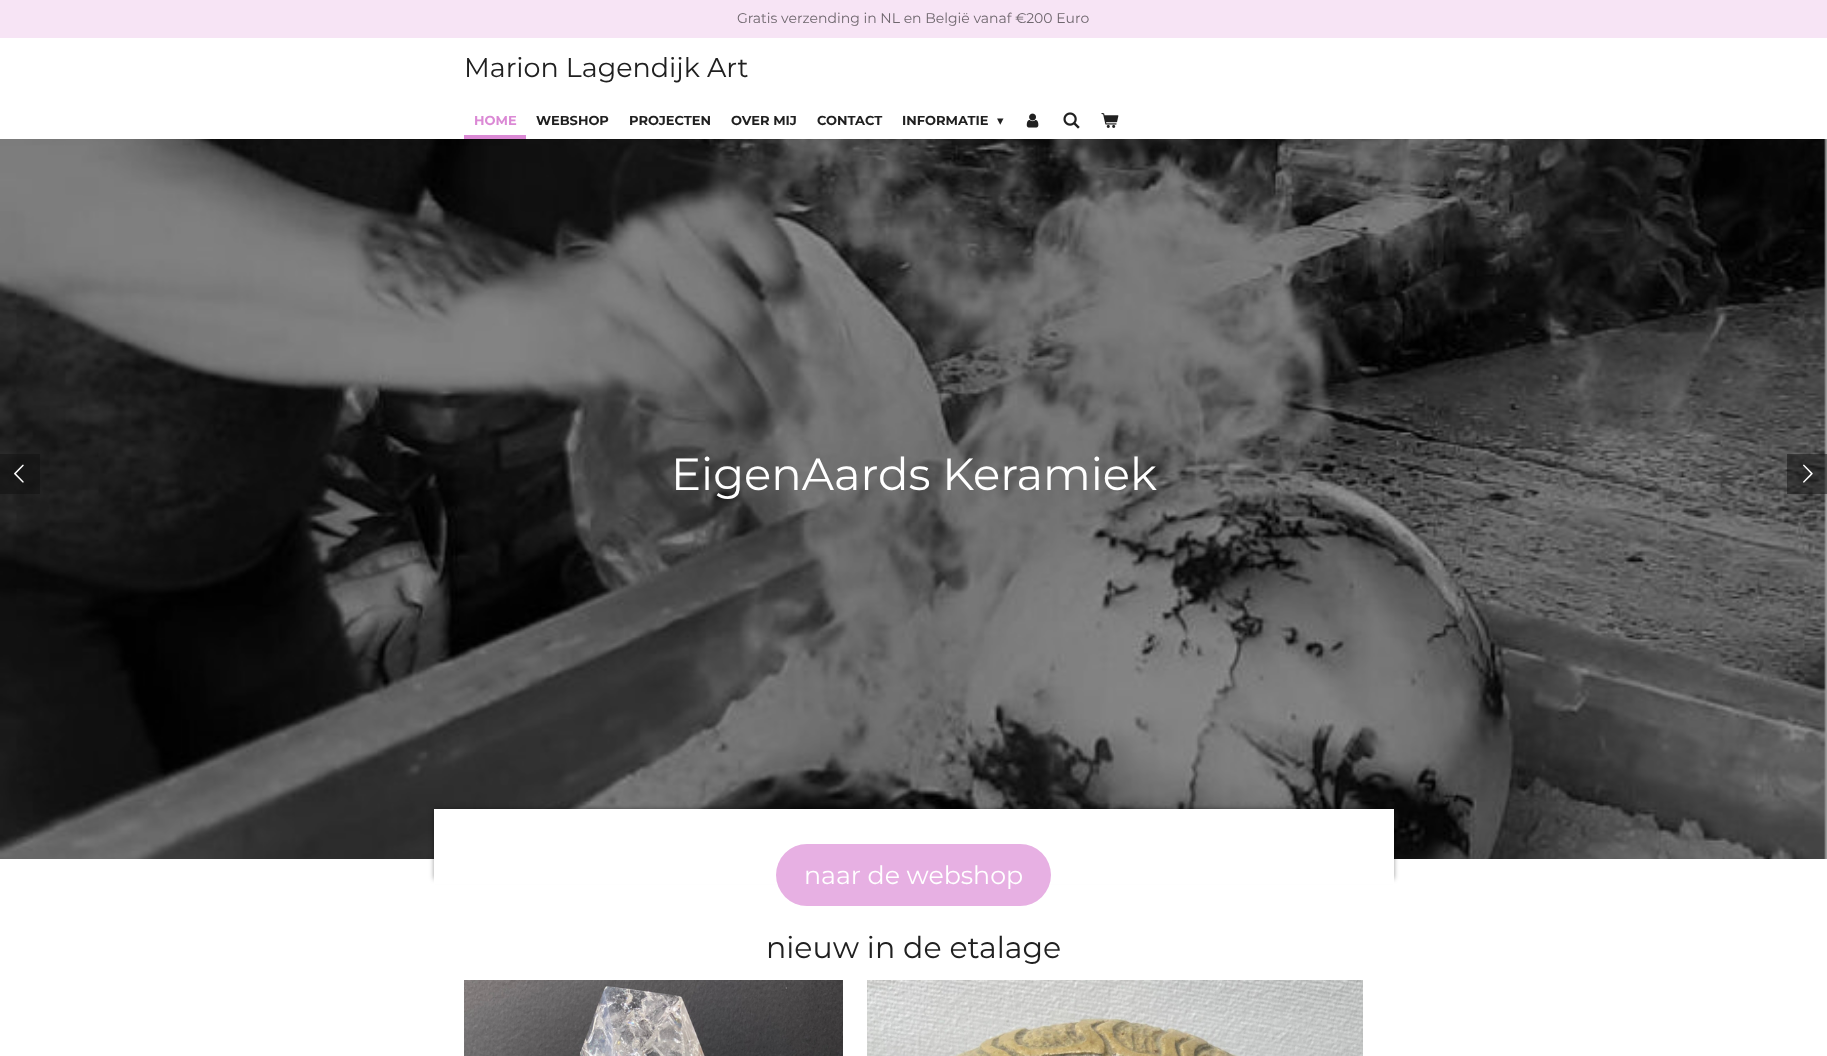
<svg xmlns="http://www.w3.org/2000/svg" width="1827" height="1056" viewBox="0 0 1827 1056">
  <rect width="100%" height="100%" fill="rgb(255,255,255)"/>
  <rect x="1824" y="139" width="3" height="720" fill="rgb(153,153,153)"/>
  <rect x="0" y="0" width="1827" height="38" fill="rgb(247,228,245)"/>
  <text x="737" y="23" font-family="Montserrat" font-size="14" fill="rgb(111,103,110)">Gratis verzending in NL en België vanaf €200 Euro</text>
  <text x="464" y="77" font-family="Montserrat" font-size="27" fill="rgb(32,32,32)">Marion Lagendijk Art</text>
  <rect x="464" y="135" width="62" height="4" fill="rgb(219,137,213)"/>
  <text x="474" y="125" font-family="Montserrat" font-size="13" font-weight="bold" fill="rgb(219,137,213)">HOME</text>
  <g font-family="Montserrat" font-size="13" font-weight="bold" fill="rgb(32,32,32)">
    <text x="536" y="125">WEBSHOP</text>
    <text x="629" y="125">PROJECTEN</text>
    <text x="731" y="125">OVER MIJ</text>
    <text x="817" y="125">CONTACT</text>
    <text x="902" y="125">INFORMATIE</text>
  </g>
  <text x="997" y="125" font-family="DejaVu Sans" font-size="13" fill="rgb(32,32,32)">▾</text>
  <image x="1026" y="113" width="13" height="15" href="pic1.png"/>
  <image x="1063" y="112" width="17" height="17" href="pic2.png"/>
  <image x="1101" y="113" width="18" height="15" href="pic3.png"/>
  <image x="0" y="139" width="1826" height="720" href="pic6.png"/>
  <rect x="0" y="454" width="40" height="40" fill="rgba(15,15,15,0.5)"/>
  <image x="14" y="464" width="10" height="19" href="pic4.png"/>
  <rect x="1787" y="454" width="40" height="40" fill="rgba(15,15,15,0.5)"/>
  <image x="1803" y="464" width="10" height="19" href="pic5.png"/>
  <text x="671" y="490" font-family="Montserrat" font-size="45" fill="rgb(255,255,255)">EigenAards Keramiek</text>
  <rect x="434" y="809" width="960" height="70" fill="rgba(0,0,0,0.4)" filter="blur(2.5px)"/>
  <rect x="434" y="809" width="960" height="75" fill="rgb(255,255,255)"/>
  <rect x="776" y="844" width="275" height="62" rx="31" fill="rgb(231,176,227)"/>
  <text x="804" y="884" font-family="Montserrat" font-size="25.25" fill="rgb(255,255,255)">naar de webshop</text>
  <text x="766" y="958" font-family="Montserrat" font-size="30" fill="rgb(32,32,32)">nieuw in de etalage</text>
  <image x="464" y="980" width="379" height="76" href="pic7.png"/>
  <image x="867" y="980" width="496" height="76" href="pic8.png"/>
</svg>
